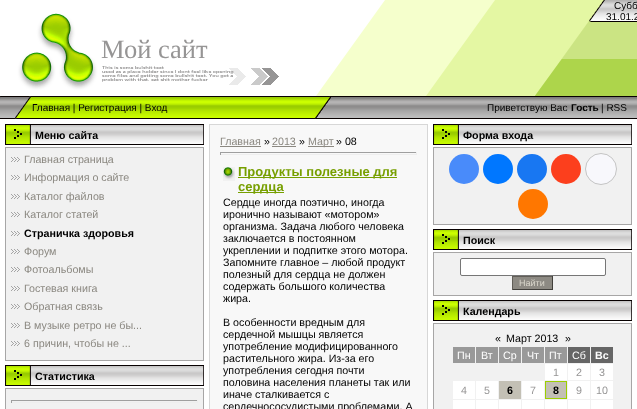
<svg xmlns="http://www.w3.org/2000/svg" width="637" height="409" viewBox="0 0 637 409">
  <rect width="100%" height="100%" fill="rgb(255,255,255)"/>
  <image x="331" y="0" width="306" height="119" href="pic1.png"/>
  <image x="0" y="0" width="101" height="22" href="pic2.png"/>
  <image x="101" y="0" width="504" height="22" href="pic3.png"/>
  <g font-family="Liberation Sans" font-size="10" fill="rgb(0,0,0)">
    <text x="614" y="9">Субб</text>
    <text x="606" y="20">31.01.2</text>
  </g>
  <image x="0" y="22" width="101" height="74" href="pic4.png"/>
  <image x="101" y="22" width="487" height="74" href="pic5.png"/>
  <text x="101" y="58" font-family="Liberation Serif" font-size="26.5" fill="rgb(150,149,149)">Мой сайт</text>
  <image x="0" y="96" width="32" height="23" href="pic6.png"/>
  <image x="32" y="96" width="275" height="23" href="pic7.png"/>
  <text x="32" y="111" font-family="Liberation Sans" font-size="10" fill="rgb(0,0,0)">Главная | Регистрация | Вход</text>
  <image x="307" y="96" width="24" height="23" href="pic8.png"/>
  <text x="487" y="111" font-family="Liberation Sans" font-size="10" fill="rgb(0,0,0)">Приветствую Вас</text>
  <text x="571" y="111" font-family="Liberation Sans" font-size="10" font-weight="bold" fill="rgb(0,0,0)">Гость</text>
  <text x="601" y="111" font-family="Liberation Sans" font-size="10" fill="rgb(0,0,0)">| RSS</text>
  <image x="5" y="124" width="199" height="21" href="pic9.png"/>
  <text x="35" y="139" font-family="Liberation Sans" font-size="10.7" font-weight="bold" fill="rgb(0,0,0)">Меню сайта</text>
  <rect x="5.5" y="147.5" width="198" height="213" fill="rgb(241,241,241)" stroke="rgb(167,166,166)"/>
  <image x="11" y="157" width="9" height="5" href="pic10.png"/>
  <text x="24" y="163" font-family="Liberation Sans" font-size="10.7" fill="rgb(139,136,129)">Главная страница</text>
  <image x="11" y="175" width="9" height="5" href="pic10.png"/>
  <text x="24" y="181" font-family="Liberation Sans" font-size="10.7" fill="rgb(139,136,129)">Информация о сайте</text>
  <image x="11" y="194" width="9" height="5" href="pic10.png"/>
  <text x="24" y="200" font-family="Liberation Sans" font-size="10.7" fill="rgb(139,136,129)">Каталог файлов</text>
  <image x="11" y="212" width="9" height="5" href="pic10.png"/>
  <text x="24" y="218" font-family="Liberation Sans" font-size="10.7" fill="rgb(139,136,129)">Каталог статей</text>
  <image x="11" y="231" width="9" height="5" href="pic10.png"/>
  <text x="24" y="237" font-family="Liberation Sans" font-size="10.7" font-weight="bold" fill="rgb(0,0,0)">Страничка здоровья</text>
  <image x="11" y="249" width="9" height="5" href="pic10.png"/>
  <text x="24" y="255" font-family="Liberation Sans" font-size="10.7" fill="rgb(139,136,129)">Форум</text>
  <image x="11" y="267" width="9" height="5" href="pic10.png"/>
  <text x="24" y="273" font-family="Liberation Sans" font-size="10.7" fill="rgb(139,136,129)">Фотоальбомы</text>
  <image x="11" y="286" width="9" height="5" href="pic10.png"/>
  <text x="24" y="292" font-family="Liberation Sans" font-size="10.7" fill="rgb(139,136,129)">Гостевая книга</text>
  <image x="11" y="304" width="9" height="5" href="pic10.png"/>
  <text x="24" y="310" font-family="Liberation Sans" font-size="10.7" fill="rgb(139,136,129)">Обратная связь</text>
  <image x="11" y="323" width="9" height="5" href="pic10.png"/>
  <text x="24" y="329" font-family="Liberation Sans" font-size="10.7" fill="rgb(139,136,129)">В музыке ретро не бы...</text>
  <image x="11" y="341" width="9" height="5" href="pic10.png"/>
  <text x="24" y="347" font-family="Liberation Sans" font-size="10.7" fill="rgb(139,136,129)">6 причин, чтобы не ...</text>
  <image x="5" y="365" width="199" height="21" href="pic9.png"/>
  <text x="35" y="380" font-family="Liberation Sans" font-size="10.7" font-weight="bold" fill="rgb(0,0,0)">Статистика</text>
  <rect x="5.5" y="388.5" width="198" height="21" fill="rgb(241,241,241)" stroke="rgb(167,166,166)"/>
  <rect x="11" y="400" width="187" height="1" fill="rgb(159,159,159)"/>
  <rect x="197" y="400" width="1" height="3" fill="rgb(238,238,238)"/>
  <rect x="11" y="402" width="187" height="1" fill="rgb(238,238,238)"/>
  <rect x="11" y="400" width="1" height="3" fill="rgb(159,159,159)"/>
  <rect x="209.5" y="124.5" width="218" height="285" fill="none" stroke="rgb(215,215,215)"/>
  <rect x="210" y="125" width="217" height="284" fill="rgb(248,248,248)"/>
  <text x="220" y="145" font-family="Liberation Sans" font-size="10.7" fill="rgb(139,136,129)">Главная</text>
  <rect x="220" y="146" width="41" height="1" fill="rgb(139,136,129)"/>
  <text x="264" y="145" font-family="Liberation Sans" font-size="10.7" fill="rgb(0,0,0)">»</text>
  <text x="272" y="145" font-family="Liberation Sans" font-size="10.7" fill="rgb(139,136,129)">2013</text>
  <rect x="272" y="146" width="24" height="1" fill="rgb(139,136,129)"/>
  <text x="299" y="145" font-family="Liberation Sans" font-size="10.7" fill="rgb(0,0,0)">»</text>
  <rect x="308" y="146" width="26" height="1" fill="rgb(139,136,129)"/>
  <text x="308" y="145" font-family="Liberation Sans" font-size="10.7" fill="rgb(139,136,129)">Март</text>
  <text x="336" y="145" font-family="Liberation Sans" font-size="10.7" fill="rgb(0,0,0)">» 08</text>
  <rect x="220" y="152" width="197" height="1" fill="rgb(159,159,159)"/>
  <rect x="416" y="152" width="1" height="3" fill="rgb(238,238,238)"/>
  <rect x="220" y="154" width="197" height="1" fill="rgb(238,238,238)"/>
  <rect x="220" y="152" width="1" height="3" fill="rgb(159,159,159)"/>
  <image x="223" y="167" width="12" height="14" href="pic11.png"/>
  <rect x="238" y="177" width="159" height="1" fill="rgb(119,159,0)"/>
  <text x="238" y="176" font-family="Liberation Sans" font-size="13" font-weight="bold" fill="rgb(119,159,0)">Продукты полезные для</text>
  <rect x="238" y="192" width="46" height="1" fill="rgb(119,159,0)"/>
  <text x="238" y="191" font-family="Liberation Sans" font-size="13" font-weight="bold" fill="rgb(119,159,0)">сердца</text>
  <g font-family="Liberation Sans" font-size="10.7" fill="rgb(0,0,0)">
    <text>
      <tspan x="223" y="206">Сердце иногда поэтично, иногда</tspan>
      <tspan x="223" y="218">иронично называют «мотором»</tspan>
      <tspan x="223" y="230">организма. Задача любого человека</tspan>
      <tspan x="223" y="242">заключается в постоянном</tspan>
      <tspan x="223" y="254">укреплении и подпитке этого мотора.</tspan>
      <tspan x="223" y="266">Запомните главное – любой продукт</tspan>
      <tspan x="223" y="278">полезный для сердца не должен</tspan>
      <tspan x="223" y="290">содержать большого количества</tspan>
      <tspan x="223" y="302">жира.</tspan>
    </text>
    <text>
      <tspan x="223" y="326">В особенности вредным для</tspan>
      <tspan x="223" y="338">сердечной мышцы является</tspan>
      <tspan x="223" y="350">употребление модифицированного</tspan>
      <tspan x="223" y="362">растительного жира. Из-за его</tspan>
      <tspan x="223" y="374">употребления сегодня почти</tspan>
      <tspan x="223" y="386">половина населения планеты так или</tspan>
      <tspan x="223" y="398">иначе сталкивается с</tspan>
      <tspan x="223" y="410">сердечнососудистыми проблемами. А</tspan>
    </text>
  </g>
  <image x="433" y="124" width="199" height="21" href="pic9.png"/>
  <text x="463" y="139" font-family="Liberation Sans" font-size="10.7" font-weight="bold" fill="rgb(0,0,0)">Форма входа</text>
  <rect x="433.5" y="147.5" width="198" height="77" fill="rgb(241,241,241)" stroke="rgb(167,166,166)"/>
  <circle cx="464" cy="169" r="15" fill="rgb(73,139,250)"/>
  <circle cx="498" cy="169" r="15" fill="rgb(0,119,255)"/>
  <circle cx="532" cy="169" r="15" fill="rgb(24,119,242)"/>
  <circle cx="566" cy="169" r="15" fill="rgb(252,63,29)"/>
  <circle cx="601" cy="169" r="15.5" fill="rgb(248,248,252)" stroke="rgb(196,196,196)"/>
  <circle cx="533" cy="204" r="15" fill="rgb(255,119,0)"/>
  <image x="433" y="229" width="199" height="21" href="pic9.png"/>
  <text x="463" y="244" font-family="Liberation Sans" font-size="10.7" font-weight="bold" fill="rgb(0,0,0)">Поиск</text>
  <rect x="433.5" y="252.5" width="198" height="43" fill="rgb(241,241,241)" stroke="rgb(167,166,166)"/>
  <rect x="460.5" y="258.5" width="145" height="17" rx="1.5" fill="rgb(255,255,255)" stroke="rgb(118,118,118)"/>
  <rect x="513" y="277" width="39" height="12" fill="rgb(141,138,131)"/>
  <rect x="512" y="276" width="41" height="1" fill="rgb(97,94,88)"/>
  <rect x="552" y="276" width="1" height="14" fill="rgb(65,63,59)"/>
  <rect x="512" y="289" width="41" height="1" fill="rgb(65,63,59)"/>
  <rect x="512" y="276" width="1" height="14" fill="rgb(97,94,88)"/>
  <text x="519" y="286" font-family="Liberation Sans" font-size="9" fill="rgb(218,215,204)">Найти</text>
  <image x="433" y="300" width="199" height="21" href="pic9.png"/>
  <text x="463" y="315" font-family="Liberation Sans" font-size="10.7" font-weight="bold" fill="rgb(0,0,0)">Календарь</text>
  <rect x="433.5" y="323.5" width="198" height="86" fill="rgb(241,241,241)" stroke="rgb(167,166,166)"/>
  <g font-family="Liberation Sans" font-size="10.7" fill="rgb(0,0,0)">
    <text x="495" y="342">«</text>
    <text x="506" y="342">Март 2013</text>
    <text x="565" y="342">»</text>
  </g>
  <rect x="453" y="347" width="22" height="16" fill="rgb(153,153,153)"/>
  <text x="457" y="359" font-family="Liberation Sans" font-size="10.7" fill="rgb(255,255,255)">Пн</text>
  <rect x="476" y="347" width="22" height="16" fill="rgb(153,153,153)"/>
  <text x="481" y="359" font-family="Liberation Sans" font-size="10.7" fill="rgb(255,255,255)">Вт</text>
  <rect x="499" y="347" width="22" height="16" fill="rgb(153,153,153)"/>
  <text x="503" y="359" font-family="Liberation Sans" font-size="10.7" fill="rgb(255,255,255)">Ср</text>
  <rect x="522" y="347" width="22" height="16" fill="rgb(153,153,153)"/>
  <text x="527" y="359" font-family="Liberation Sans" font-size="10.7" fill="rgb(255,255,255)">Чт</text>
  <rect x="545" y="347" width="22" height="16" fill="rgb(153,153,153)"/>
  <text x="549" y="359" font-family="Liberation Sans" font-size="10.7" fill="rgb(255,255,255)">Пт</text>
  <rect x="568" y="347" width="22" height="16" fill="rgb(102,102,102)"/>
  <text x="572" y="359" font-family="Liberation Sans" font-size="10.7" fill="rgb(255,255,255)">Сб</text>
  <rect x="591" y="347" width="22" height="16" fill="rgb(102,102,102)"/>
  <text x="595" y="359" font-family="Liberation Sans" font-size="10.7" font-weight="bold" fill="rgb(255,255,255)">Вс</text>
  <rect x="545" y="364" width="22" height="16" fill="rgb(255,255,255)"/>
  <text x="553" y="376" font-family="Liberation Sans" font-size="10.7" fill="rgb(150,149,149)">1</text>
  <rect x="568" y="364" width="22" height="16" fill="rgb(255,255,255)"/>
  <text x="576" y="376" font-family="Liberation Sans" font-size="10.7" fill="rgb(150,149,149)">2</text>
  <rect x="591" y="364" width="22" height="16" fill="rgb(255,255,255)"/>
  <text x="599" y="376" font-family="Liberation Sans" font-size="10.7" fill="rgb(150,149,149)">3</text>
  <rect x="453" y="381" width="22" height="18" fill="rgb(255,255,255)"/>
  <text x="461" y="394" font-family="Liberation Sans" font-size="10.7" fill="rgb(150,149,149)">4</text>
  <rect x="476" y="381" width="22" height="18" fill="rgb(255,255,255)"/>
  <text x="484" y="394" font-family="Liberation Sans" font-size="10.7" fill="rgb(150,149,149)">5</text>
  <rect x="499" y="381" width="22" height="18" fill="rgb(195,192,181)"/>
  <text x="507" y="394" font-family="Liberation Sans" font-size="10.7" font-weight="bold" fill="rgb(0,0,0)">6</text>
  <rect x="522" y="381" width="22" height="18" fill="rgb(255,255,255)"/>
  <text x="530" y="394" font-family="Liberation Sans" font-size="10.7" fill="rgb(150,149,149)">7</text>
  <rect x="545.5" y="381.5" width="21" height="17" fill="rgb(195,192,181)" stroke="rgb(156,207,0)"/>
  <text x="553" y="394" font-family="Liberation Sans" font-size="10.7" font-weight="bold" fill="rgb(0,0,0)">8</text>
  <rect x="568" y="381" width="22" height="18" fill="rgb(255,255,255)"/>
  <text x="576" y="394" font-family="Liberation Sans" font-size="10.7" fill="rgb(150,149,149)">9</text>
  <rect x="591" y="381" width="22" height="18" fill="rgb(255,255,255)"/>
  <text x="596" y="394" font-family="Liberation Sans" font-size="10.7" fill="rgb(150,149,149)">10</text>
  <rect x="453" y="400" width="22" height="9" fill="rgb(255,255,255)"/>
  <rect x="476" y="400" width="22" height="9" fill="rgb(255,255,255)"/>
  <rect x="499" y="400" width="22" height="9" fill="rgb(255,255,255)"/>
  <rect x="522" y="400" width="22" height="9" fill="rgb(255,255,255)"/>
  <rect x="545" y="400" width="22" height="9" fill="rgb(255,255,255)"/>
  <rect x="568" y="400" width="22" height="9" fill="rgb(255,255,255)"/>
  <rect x="591" y="400" width="22" height="9" fill="rgb(255,255,255)"/>
</svg>
